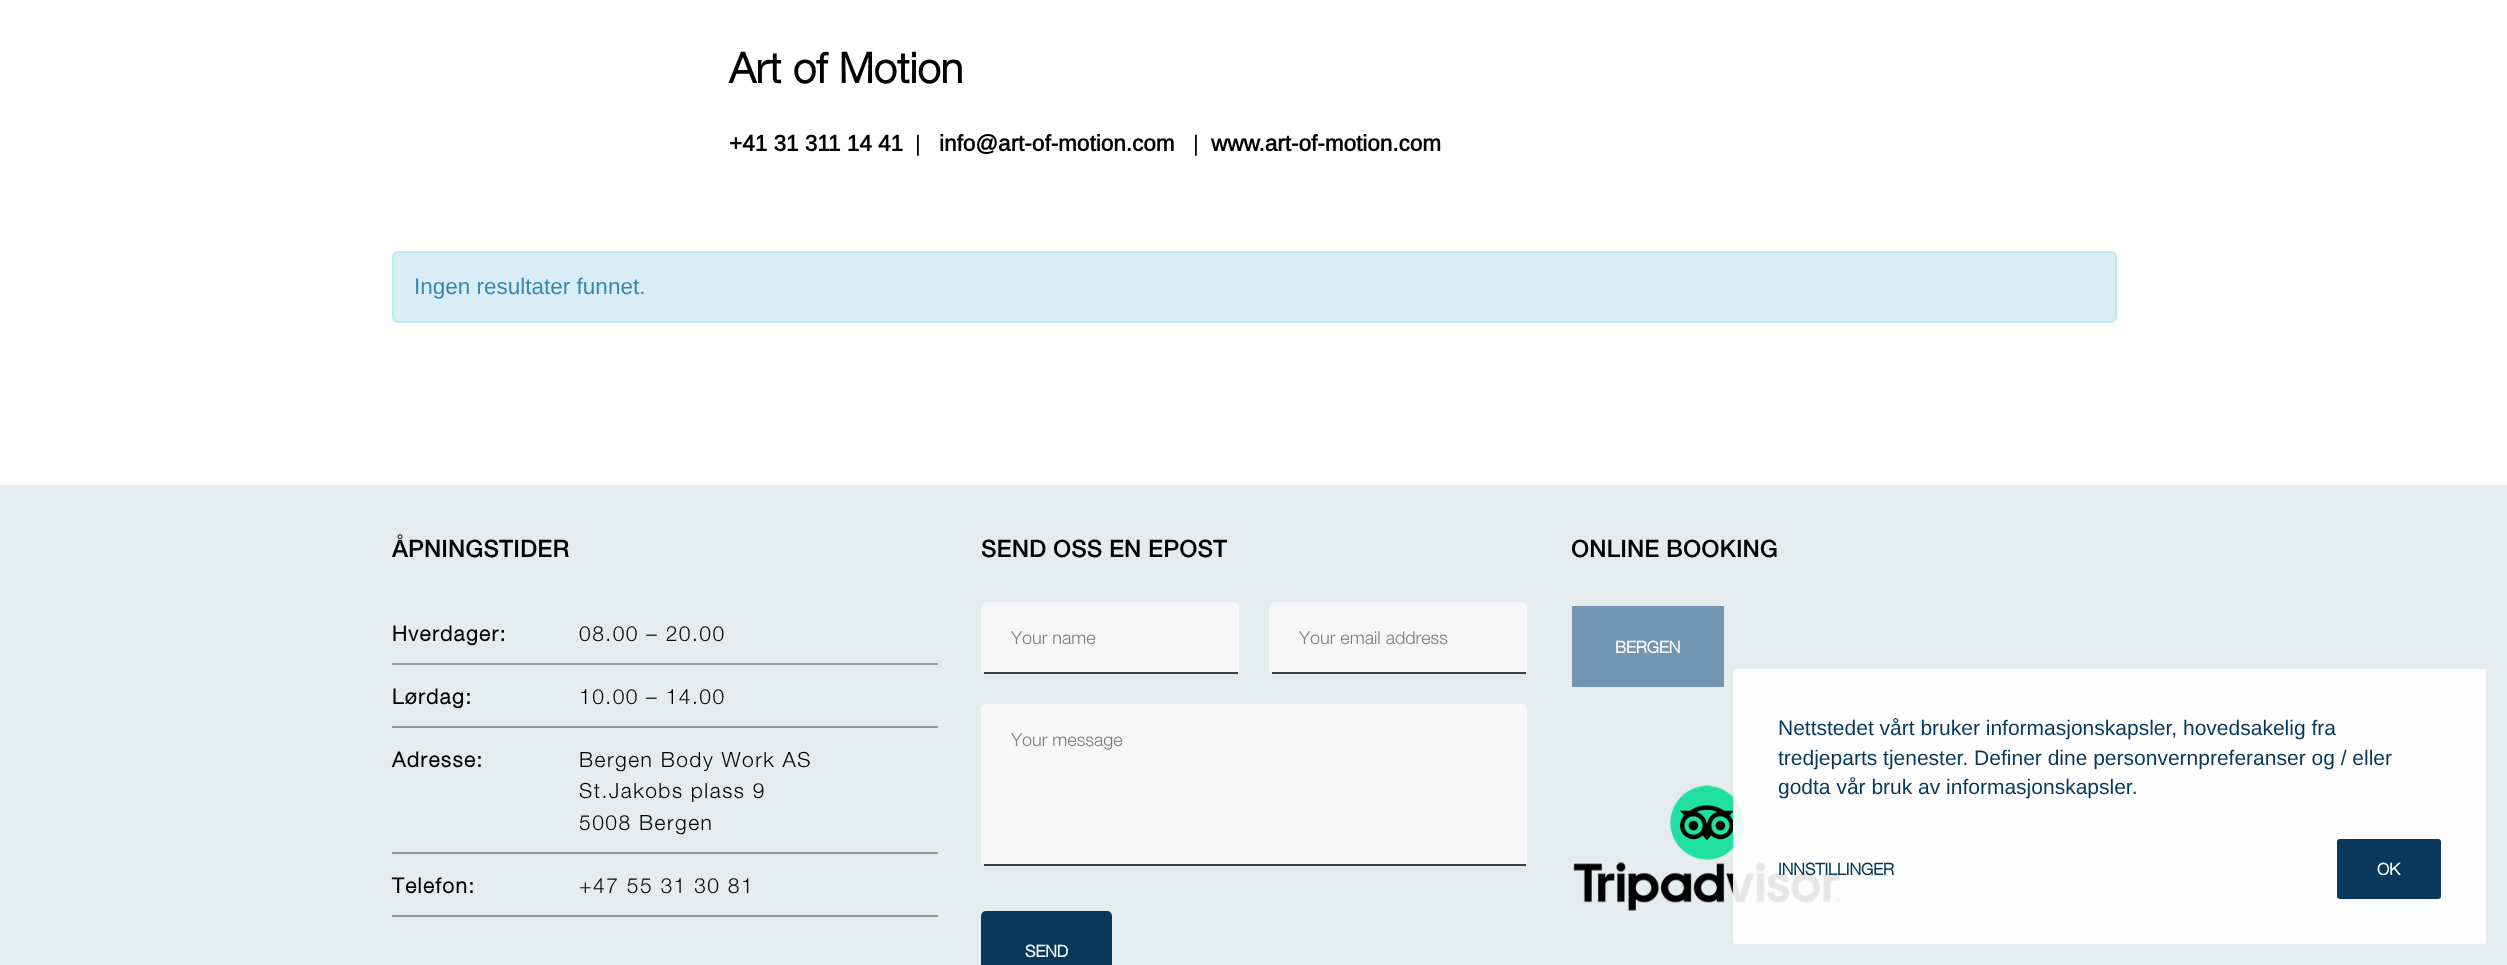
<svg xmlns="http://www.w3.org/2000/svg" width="2507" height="965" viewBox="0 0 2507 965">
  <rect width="100%" height="100%" fill="rgb(230,235,238)"/>
  <rect x="0" y="0" width="2507" height="485" fill="rgb(255,255,255)"/>
  <text x="729" y="83" font-family="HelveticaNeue" font-size="42" font-weight="bold" fill="rgb(0,0,0)">Art of Motion</text>
  <text x="729" y="151" font-family="Arimo" font-size="22.5" font-weight="bold" fill="rgb(0,0,0)">+41 31 311 14 41</text>
  <text x="915" y="151" font-family="Arimo" font-size="22.5" fill="rgb(0,0,0)">|</text>
  <text x="939" y="151" font-family="Arimo" font-size="22.5" font-weight="bold" fill="rgb(0,0,0)">info@art-of-motion.com</text>
  <text x="1193" y="151" font-family="Arimo" font-size="22.5" fill="rgb(0,0,0)">|</text>
  <text x="1211" y="151" font-family="Arimo" font-size="22.5" font-weight="bold" fill="rgb(0,0,0)">www.art-of-motion.com</text>
  <rect x="393" y="252" width="1723" height="70" rx="5" fill="rgb(217,237,247)" stroke="rgb(188,232,241)" stroke-width="2"/>
  <text x="414" y="294" font-family="Arimo" font-size="22.5" fill="rgb(58,135,173)">Ingen resultater funnet.</text>
  <text x="392" y="557" font-family="HelveticaNeue" font-size="24" font-weight="500" fill="rgb(0,0,0)">ÅPNINGSTIDER</text>
  <rect x="392" y="663" width="546" height="2" fill="rgb(153,153,153)"/>
  <text x="392" y="641" font-family="HelveticaNeue" font-size="21" font-weight="bold" letter-spacing="1.5" fill="rgb(0,0,0)">Hverdager:</text>
  <text x="579" y="641" font-family="HelveticaNeue" font-size="21" font-weight="300" letter-spacing="1.5" fill="rgb(0,0,0)">08.00 – 20.00</text>
  <rect x="392" y="726" width="546" height="2" fill="rgb(153,153,153)"/>
  <text x="392" y="704" font-family="HelveticaNeue" font-size="21" font-weight="bold" letter-spacing="1.5" fill="rgb(0,0,0)">Lørdag:</text>
  <text x="579" y="704" font-family="HelveticaNeue" font-size="21" font-weight="300" letter-spacing="1.5" fill="rgb(0,0,0)">10.00 – 14.00</text>
  <rect x="392" y="852" width="546" height="2" fill="rgb(153,153,153)"/>
  <text x="392" y="767" font-family="HelveticaNeue" font-size="21" font-weight="bold" letter-spacing="1.5" fill="rgb(0,0,0)">Adresse:</text>
  <g font-family="HelveticaNeue" font-size="21" font-weight="300" letter-spacing="1.5" fill="rgb(0,0,0)">
    <text>
      <tspan x="579" y="767">Bergen Body Work AS</tspan>
      <tspan x="579" y="798">St.Jakobs plass 9</tspan>
      <tspan x="579" y="830">5008 Bergen</tspan>
    </text>
  </g>
  <rect x="392" y="915" width="546" height="2" fill="rgb(153,153,153)"/>
  <text x="392" y="893" font-family="HelveticaNeue" font-size="21" font-weight="bold" letter-spacing="1.5" fill="rgb(0,0,0)">Telefon:</text>
  <text x="579" y="893" font-family="HelveticaNeue" font-size="21" font-weight="300" letter-spacing="1.5" fill="rgb(0,0,0)">+47 55 31 30 81</text>
  <text x="981" y="557" font-family="HelveticaNeue" font-size="24" font-weight="500" fill="rgb(0,0,0)">SEND OSS EN EPOST</text>
  <rect x="981" y="602" width="258" height="72" rx="5" fill="rgb(247,247,247)"/>
  <rect x="984" y="672" width="254" height="2" fill="rgb(62,63,63)"/>
  <text x="1011" y="644" font-family="HelveticaNeue" font-size="18" font-weight="300" fill="rgb(124,124,124)">Your name</text>
  <rect x="1269" y="602" width="258" height="72" rx="5" fill="rgb(247,247,247)"/>
  <rect x="1272" y="672" width="254" height="2" fill="rgb(62,63,63)"/>
  <text x="1299" y="644" font-family="HelveticaNeue" font-size="18" font-weight="300" fill="rgb(124,124,124)">Your email address</text>
  <rect x="981" y="704" width="546" height="162" rx="5" fill="rgb(247,247,247)"/>
  <rect x="984" y="864" width="542" height="2" fill="rgb(62,63,63)"/>
  <text x="1011" y="746" font-family="HelveticaNeue" font-size="18" font-weight="300" fill="rgb(124,124,124)">Your message</text>
  <rect x="981" y="911" width="131" height="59" rx="5" fill="rgb(8,56,92)"/>
  <text x="1025" y="957" font-family="HelveticaNeue" font-size="16.5" font-weight="bold" fill="rgb(255,255,255)">SEND</text>
  <text x="1571" y="557" font-family="HelveticaNeue" font-size="24" font-weight="500" fill="rgb(0,0,0)">ONLINE BOOKING</text>
  <rect x="1572" y="606" width="152" height="81" fill="rgb(114,149,177)"/>
  <text x="1615" y="653" font-family="HelveticaNeue" font-size="16.5" font-weight="bold" fill="rgb(255,255,255)">BERGEN</text>
  <image x="1573" y="785" width="268" height="126" href="pic1.png"/>
  <rect x="1733" y="669" width="753" height="275" rx="3" fill="rgba(255,255,255,0.9)"/>
  <g font-family="Arimo" font-size="21" fill="rgb(8,56,92)">
    <text>
      <tspan x="1778" y="735">Nettstedet vårt bruker informasjonskapsler, hovedsakelig fra</tspan>
      <tspan x="1778" y="765">tredjeparts tjenester. Definer dine personvernpreferanser og / eller</tspan>
      <tspan x="1778" y="794">godta vår bruk av informasjonskapsler.</tspan>
    </text>
  </g>
  <text x="1778" y="875" font-family="HelveticaNeue" font-size="16.5" font-weight="bold" fill="rgb(8,56,92)">INNSTILLINGER</text>
  <rect x="2337" y="839" width="104" height="60" rx="3" fill="rgb(8,56,92)"/>
  <text x="2377" y="875" font-family="HelveticaNeue" font-size="16.5" font-weight="bold" fill="rgb(255,255,255)">OK</text>
</svg>
